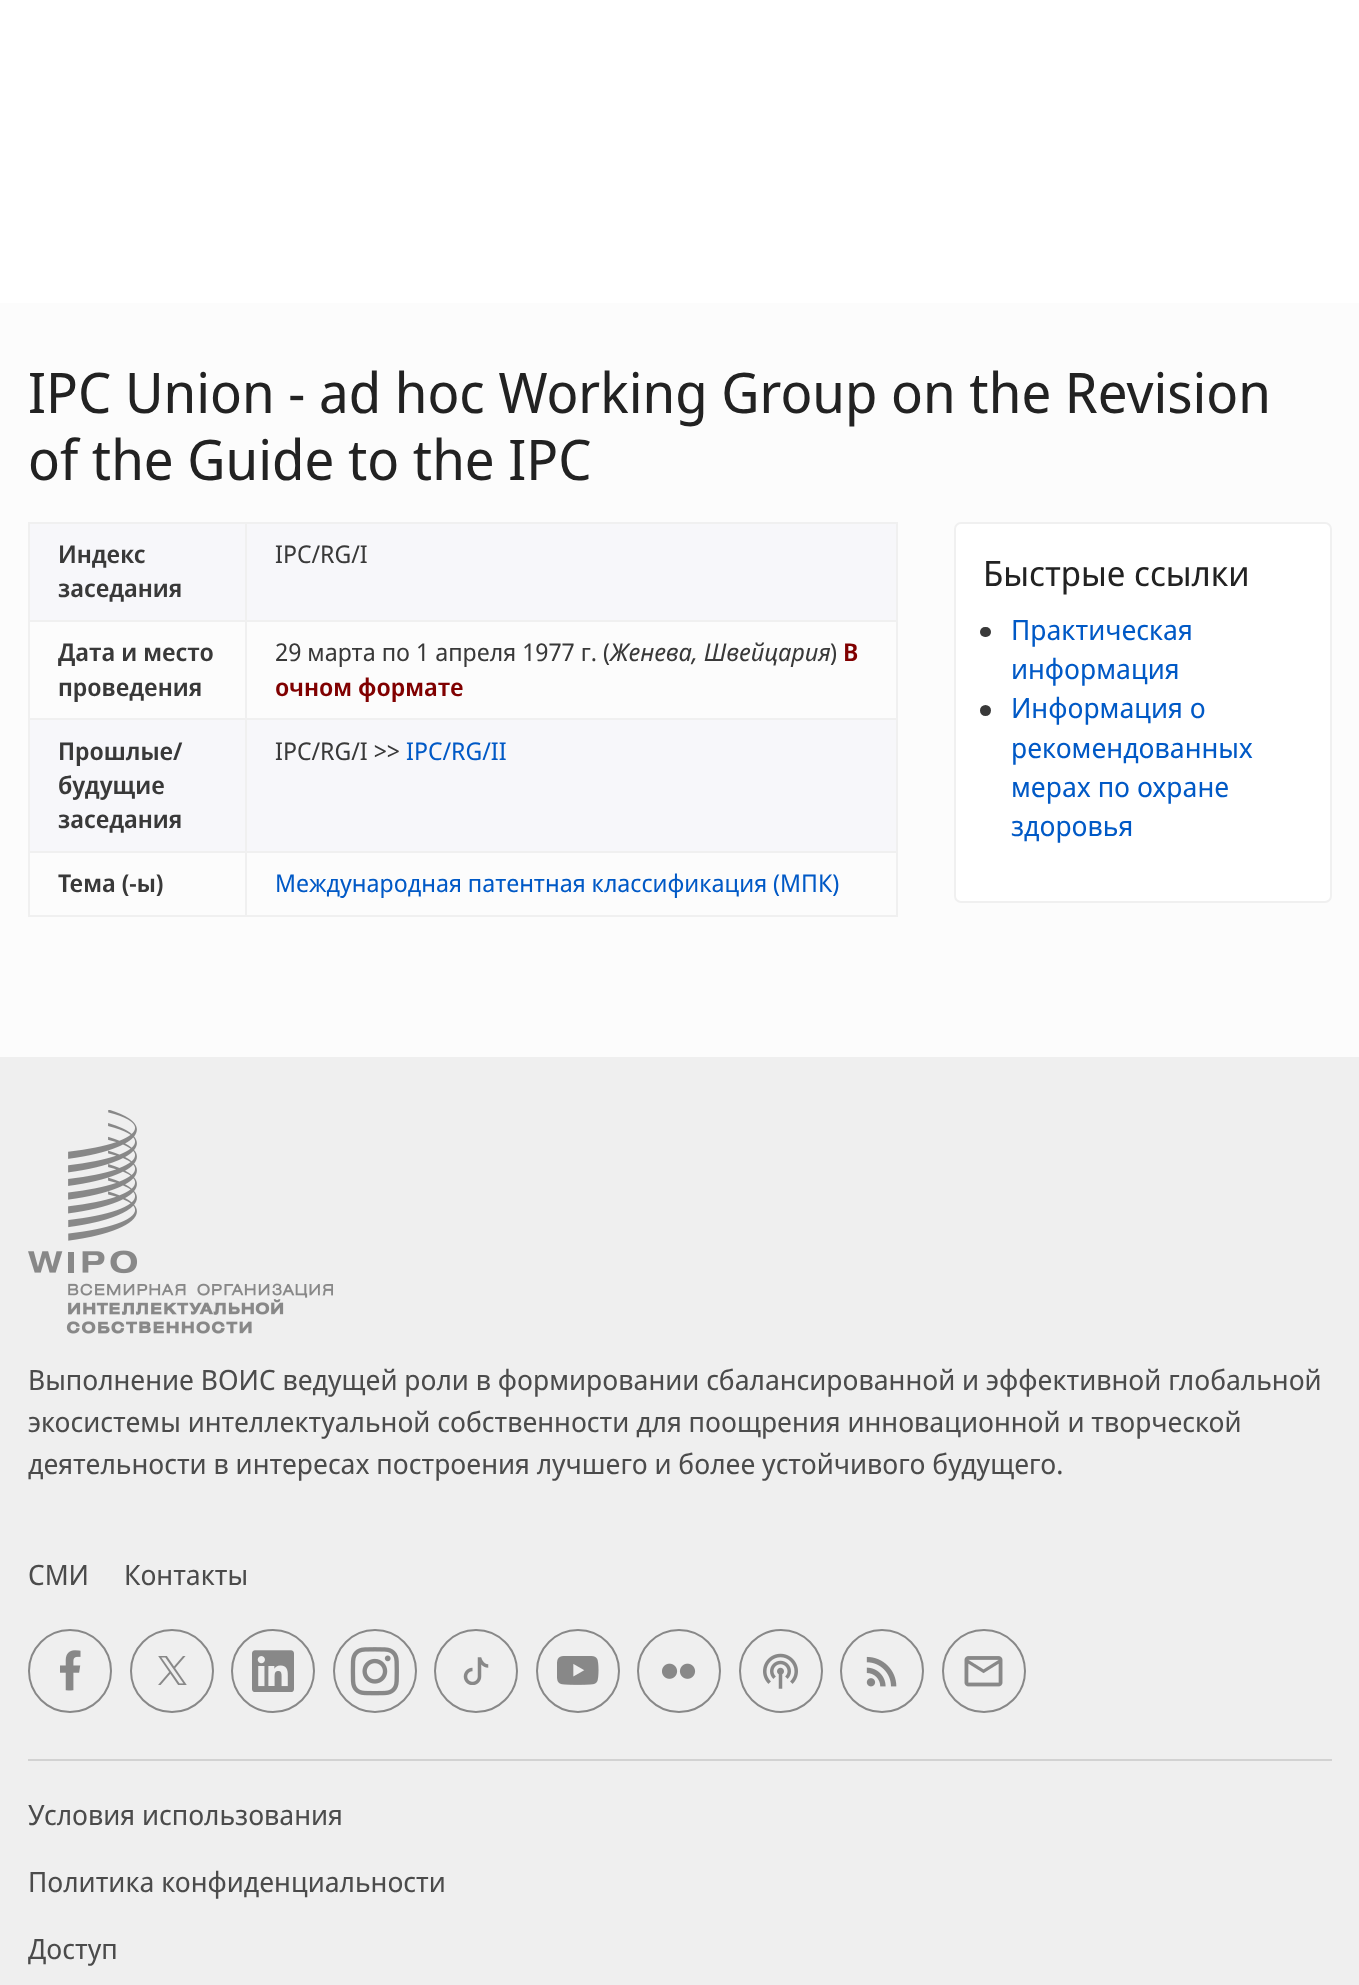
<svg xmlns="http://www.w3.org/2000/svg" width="1359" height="1985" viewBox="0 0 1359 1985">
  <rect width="100%" height="100%" fill="rgb(252,252,252)"/>
  <rect x="0" y="0" width="1359" height="303" fill="rgb(255,255,255)"/>
  <g font-family="Noto Sans Display" font-size="56" fill="rgb(34,34,34)">
    <text>
      <tspan x="28" y="413">IPC Union - ad hoc Working Group on the Revision</tspan>
      <tspan x="28" y="480">of the Guide to the IPC</tspan>
    </text>
  </g>
  <rect x="30" y="524" width="215" height="96" fill="rgb(247,247,250)"/>
  <rect x="245" y="522" width="653" height="2" fill="rgb(240,240,240)"/>
  <rect x="245" y="620" width="653" height="2" fill="rgb(240,240,240)"/>
  <rect x="245" y="718" width="653" height="2" fill="rgb(240,240,240)"/>
  <rect x="245" y="851" width="653" height="2" fill="rgb(240,240,240)"/>
  <rect x="896" y="851" width="2" height="66" fill="rgb(240,240,240)"/>
  <rect x="245" y="915" width="653" height="2" fill="rgb(240,240,240)"/>
  <rect x="245" y="851" width="2" height="66" fill="rgb(240,240,240)"/>
  <rect x="28" y="851" width="219" height="2" fill="rgb(240,240,240)"/>
  <rect x="245" y="718" width="2" height="134" fill="rgb(240,240,240)"/>
  <rect x="28" y="718" width="219" height="2" fill="rgb(240,240,240)"/>
  <rect x="245" y="620" width="2" height="99" fill="rgb(240,240,240)"/>
  <rect x="28" y="620" width="219" height="2" fill="rgb(240,240,240)"/>
  <rect x="245" y="522" width="2" height="99" fill="rgb(240,240,240)"/>
  <rect x="28" y="522" width="219" height="2" fill="rgb(240,240,240)"/>
  <rect x="28" y="915" width="219" height="2" fill="rgb(240,240,240)"/>
  <rect x="28" y="851" width="2" height="66" fill="rgb(240,240,240)"/>
  <rect x="28" y="718" width="2" height="134" fill="rgb(240,240,240)"/>
  <rect x="28" y="620" width="2" height="99" fill="rgb(240,240,240)"/>
  <rect x="28" y="522" width="2" height="99" fill="rgb(240,240,240)"/>
  <g font-family="Noto Sans Display" font-size="24.5" font-weight="600" fill="rgb(57,57,57)">
    <text>
      <tspan x="58" y="563">Индекс</tspan>
      <tspan x="58" y="597">заседания</tspan>
    </text>
  </g>
  <rect x="247" y="524" width="649" height="96" fill="rgb(247,247,250)"/>
  <rect x="896" y="718" width="2" height="134" fill="rgb(240,240,240)"/>
  <rect x="896" y="620" width="2" height="99" fill="rgb(240,240,240)"/>
  <rect x="896" y="522" width="2" height="99" fill="rgb(240,240,240)"/>
  <text x="275" y="563" font-family="Noto Sans Display" font-size="24.5" fill="rgb(57,57,57)">IPC/RG/I</text>
  <g font-family="Noto Sans Display" font-size="24.5" font-weight="600" fill="rgb(57,57,57)">
    <text>
      <tspan x="58" y="661">Дата и место</tspan>
      <tspan x="58" y="696">проведения</tspan>
    </text>
  </g>
  <text x="275" y="661" font-family="Noto Sans Display" font-size="24.5" fill="rgb(57,57,57)">29 марта по 1 апреля 1977 г. (</text>
  <text x="610" y="661" font-family="Noto Sans Display" font-size="24.5" font-style="italic" fill="rgb(57,57,57)">Женева, Швейцария</text>
  <text x="830" y="661" font-family="Noto Sans Display" font-size="24.5" fill="rgb(57,57,57)">)</text>
  <g font-family="Noto Sans Display" font-size="24.5" font-weight="600" fill="rgb(128,0,0)">
    <text x="843" y="661">В</text>
    <text x="275" y="696">очном формате</text>
  </g>
  <rect x="30" y="720" width="215" height="131" fill="rgb(247,247,250)"/>
  <g font-family="Noto Sans Display" font-size="24.5" font-weight="600" fill="rgb(57,57,57)">
    <text>
      <tspan x="58" y="760">Прошлые/</tspan>
      <tspan x="58" y="794">будущие</tspan>
      <tspan x="58" y="828">заседания</tspan>
    </text>
  </g>
  <rect x="247" y="720" width="649" height="131" fill="rgb(247,247,250)"/>
  <text x="275" y="760" font-family="Noto Sans Display" font-size="24.5" fill="rgb(57,57,57)">IPC/RG/I &gt;&gt;</text>
  <text x="406" y="760" font-family="Noto Sans Display" font-size="24.5" fill="rgb(0,89,198)">IPC/RG/II</text>
  <text x="58" y="892" font-family="Noto Sans Display" font-size="24.5" font-weight="600" fill="rgb(57,57,57)">Тема (-ы)</text>
  <text x="275" y="892" font-family="Noto Sans Display" font-size="24.5" fill="rgb(0,89,198)">Международная патентная классификация (МПК)</text>
  <rect x="955" y="523" width="376" height="379" rx="6" fill="rgb(255,255,255)" stroke="rgb(240,240,240)" stroke-width="2"/>
  <text x="983" y="586" font-family="Noto Sans Display" font-size="35" fill="rgb(34,34,34)">Быстрые ссылки</text>
  <rect x="980" y="627" width="11" height="10" rx="5" fill="rgb(57,57,57)"/>
  <g font-family="Noto Sans Display" font-size="28" fill="rgb(0,89,198)">
    <text>
      <tspan x="1011" y="640">Практическая</tspan>
      <tspan x="1011" y="679">информация</tspan>
    </text>
  </g>
  <circle cx="985.5" cy="710.5" r="5.5" fill="rgb(57,57,57)"/>
  <g font-family="Noto Sans Display" font-size="28" fill="rgb(0,89,198)">
    <text>
      <tspan x="1011" y="718">Информация о</tspan>
      <tspan x="1011" y="758">рекомендованных</tspan>
      <tspan x="1011" y="797">мерах по охране</tspan>
      <tspan x="1011" y="836">здоровья</tspan>
    </text>
  </g>
  <rect x="0" y="1057" width="1359" height="928" fill="rgb(239,239,239)"/>
  <image x="28" y="1110" width="305" height="224" href="pic1.png"/>
  <g font-family="Noto Sans Display" font-size="28" fill="rgb(75,75,75)">
    <text>
      <tspan x="28" y="1390">Выполнение ВОИС ведущей роли в формировании сбалансированной и эффективной глобальной</tspan>
      <tspan x="28" y="1432">экосистемы интеллектуальной собственности для поощрения инновационной и творческой</tspan>
      <tspan x="28" y="1474">деятельности в интересах построения лучшего и более устойчивого будущего.</tspan>
    </text>
    <text x="28" y="1585">СМИ</text>
    <text x="124" y="1585">Контакты</text>
  </g>
  <circle cx="70" cy="1671" r="41" fill="none" stroke="rgb(136,136,136)" stroke-width="2"/>
  <image x="60" y="1650" width="21" height="41" href="pic2.png"/>
  <circle cx="172" cy="1671" r="41" fill="none" stroke="rgb(136,136,136)" stroke-width="2"/>
  <image x="158" y="1656" width="29" height="29" href="pic3.png"/>
  <circle cx="273" cy="1671" r="41" fill="none" stroke="rgb(136,136,136)" stroke-width="2"/>
  <image x="252" y="1650" width="42" height="42" href="pic4.png"/>
  <circle cx="375" cy="1671" r="41" fill="none" stroke="rgb(136,136,136)" stroke-width="2"/>
  <image x="350" y="1647" width="49" height="49" href="pic5.png"/>
  <circle cx="476" cy="1671" r="41" fill="none" stroke="rgb(136,136,136)" stroke-width="2"/>
  <image x="463" y="1657" width="26" height="28" href="pic6.png"/>
  <circle cx="578" cy="1671" r="41" fill="none" stroke="rgb(136,136,136)" stroke-width="2"/>
  <image x="557" y="1656" width="42" height="29" href="pic7.png"/>
  <circle cx="679" cy="1671" r="41" fill="none" stroke="rgb(136,136,136)" stroke-width="2"/>
  <image x="662" y="1663" width="34" height="16" href="pic8.png"/>
  <circle cx="781" cy="1671" r="41" fill="none" stroke="rgb(136,136,136)" stroke-width="2"/>
  <image x="763" y="1653" width="35" height="36" href="pic9.png"/>
  <circle cx="882" cy="1671" r="41" fill="none" stroke="rgb(136,136,136)" stroke-width="2"/>
  <image x="866" y="1656" width="31" height="31" href="pic10.png"/>
  <circle cx="984" cy="1671" r="41" fill="none" stroke="rgb(136,136,136)" stroke-width="2"/>
  <image x="964" y="1656" width="39" height="31" href="pic11.png"/>
  <rect x="28" y="1759" width="1304" height="2" fill="rgb(210,210,210)"/>
  <g font-family="Noto Sans Display" font-size="28" fill="rgb(75,75,75)">
    <text x="28" y="1825">Условия использования</text>
    <text x="28" y="1892">Политика конфиденциальности</text>
    <text x="28" y="1959">Доступ</text>
  </g>
</svg>
